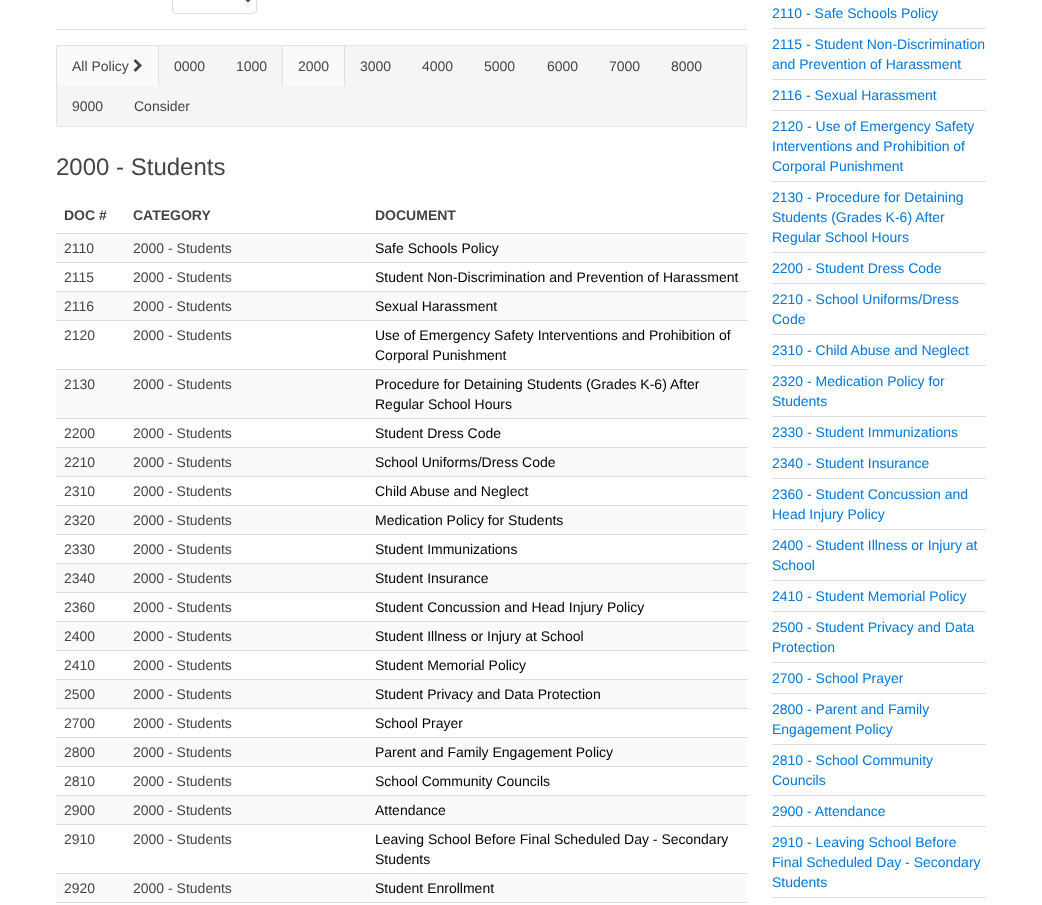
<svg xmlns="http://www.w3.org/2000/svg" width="1042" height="905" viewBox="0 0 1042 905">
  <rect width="100%" height="100%" fill="rgb(255,255,255)"/>
  <rect x="172.5" y="-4.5" width="84" height="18" rx="3.5" fill="none" stroke="rgb(221,221,221)"/>
  <path d="M244-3L248 1L252-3" fill="none" stroke="rgb(68,68,68)" stroke-width="2"/>
  <rect x="56" y="29" width="691" height="1" fill="rgb(221,221,221)"/>
  <rect x="56" y="45" width="691" height="82" rx="4" fill="rgb(245,245,245)"/>
  <rect x="56.5" y="45.5" width="690" height="81" fill="none" stroke="rgba(0,0,0,0.06)"/>
  <path d="M60 45H159V86H60C58 86 56 84 56 82V49C56 47 58 45 60 45Z" fill="rgb(250,250,250)"/>
  <path d="M60 45H159V86H60C58 86 56 84 56 82V49C56 47 58 45 60 45ZM60 46H158V86H60C58 86 57 84 57 82V49C57 47 58 46 60 46Z" fill="rgba(0,0,0,0.1)" fill-rule="evenodd"/>
  <text x="72" y="71" font-family="Liberation Sans" font-size="14" fill="rgb(68,68,68)">All Policy</text>
  <image x="133" y="59" width="9" height="13" href="pic1.png"/>
  <g font-family="Liberation Sans" font-size="14" fill="rgb(68,68,68)">
    <text x="174" y="71">0000</text>
    <text x="236" y="71">1000</text>
  </g>
  <rect x="282" y="45" width="63" height="41" fill="rgb(250,250,250)"/>
  <path d="M282 45H345L344 46H283Z" fill="rgb(225,225,225)"/>
  <path d="M345 45V86H344V46ZM282 86V45L283 46V86Z" fill="rgba(0,0,0,0.1)"/>
  <g font-family="Liberation Sans" font-size="14" fill="rgb(68,68,68)">
    <text x="298" y="71">2000</text>
    <text x="360" y="71">3000</text>
    <text x="422" y="71">4000</text>
    <text x="484" y="71">5000</text>
    <text x="547" y="71">6000</text>
    <text x="609" y="71">7000</text>
    <text x="671" y="71">8000</text>
    <text x="72" y="111">9000</text>
    <text x="134" y="111">Consider</text>
  </g>
  <text x="56" y="175" font-family="Liberation Sans" font-size="24" fill="rgb(68,68,68)">2000 - Students</text>
  <g font-family="Liberation Sans" font-size="14" font-weight="bold" fill="rgb(68,68,68)">
    <text x="64" y="220">DOC #</text>
    <text x="133" y="220">CATEGORY</text>
  </g>
  <rect x="56" y="233" width="692" height="1" fill="rgb(221,221,221)"/>
  <text x="375" y="220" font-family="Liberation Sans" font-size="14" font-weight="bold" fill="rgb(68,68,68)">DOCUMENT</text>
  <rect x="56" y="234" width="691" height="28" fill="rgb(250,250,250)"/>
  <g font-family="Liberation Sans" font-size="14" fill="rgb(68,68,68)">
    <text x="64" y="253">2110</text>
    <text x="133" y="253">2000 - Students</text>
  </g>
  <rect x="56" y="262" width="692" height="1" fill="rgb(221,221,221)"/>
  <text x="375" y="253" font-family="Liberation Sans" font-size="14" fill="rgb(0,0,0)">Safe Schools Policy</text>
  <g font-family="Liberation Sans" font-size="14" fill="rgb(68,68,68)">
    <text x="64" y="282">2115</text>
    <text x="133" y="282">2000 - Students</text>
  </g>
  <rect x="56" y="291" width="692" height="1" fill="rgb(221,221,221)"/>
  <text x="375" y="282" font-family="Liberation Sans" font-size="14" fill="rgb(0,0,0)">Student Non-Discrimination and Prevention of Harassment</text>
  <rect x="56" y="292" width="691" height="28" fill="rgb(250,250,250)"/>
  <g font-family="Liberation Sans" font-size="14" fill="rgb(68,68,68)">
    <text x="64" y="311">2116</text>
    <text x="133" y="311">2000 - Students</text>
  </g>
  <rect x="56" y="320" width="692" height="1" fill="rgb(221,221,221)"/>
  <text x="375" y="311" font-family="Liberation Sans" font-size="14" fill="rgb(0,0,0)">Sexual Harassment</text>
  <g font-family="Liberation Sans" font-size="14" fill="rgb(68,68,68)">
    <text x="64" y="340">2120</text>
    <text x="133" y="340">2000 - Students</text>
  </g>
  <rect x="56" y="369" width="692" height="1" fill="rgb(221,221,221)"/>
  <g font-family="Liberation Sans" font-size="14" fill="rgb(0,0,0)">
    <text>
      <tspan x="375" y="340">Use of Emergency Safety Interventions and Prohibition of</tspan>
      <tspan x="375" y="360">Corporal Punishment</tspan>
    </text>
  </g>
  <rect x="56" y="370" width="691" height="48" fill="rgb(250,250,250)"/>
  <g font-family="Liberation Sans" font-size="14" fill="rgb(68,68,68)">
    <text x="64" y="389">2130</text>
    <text x="133" y="389">2000 - Students</text>
  </g>
  <rect x="56" y="418" width="692" height="1" fill="rgb(221,221,221)"/>
  <g font-family="Liberation Sans" font-size="14" fill="rgb(0,0,0)">
    <text>
      <tspan x="375" y="389">Procedure for Detaining Students (Grades K-6) After</tspan>
      <tspan x="375" y="409">Regular School Hours</tspan>
    </text>
  </g>
  <g font-family="Liberation Sans" font-size="14" fill="rgb(68,68,68)">
    <text x="64" y="438">2200</text>
    <text x="133" y="438">2000 - Students</text>
  </g>
  <rect x="56" y="447" width="692" height="1" fill="rgb(221,221,221)"/>
  <text x="375" y="438" font-family="Liberation Sans" font-size="14" fill="rgb(0,0,0)">Student Dress Code</text>
  <rect x="56" y="448" width="691" height="28" fill="rgb(250,250,250)"/>
  <g font-family="Liberation Sans" font-size="14" fill="rgb(68,68,68)">
    <text x="64" y="467">2210</text>
    <text x="133" y="467">2000 - Students</text>
  </g>
  <rect x="56" y="476" width="692" height="1" fill="rgb(221,221,221)"/>
  <text x="375" y="467" font-family="Liberation Sans" font-size="14" fill="rgb(0,0,0)">School Uniforms/Dress Code</text>
  <g font-family="Liberation Sans" font-size="14" fill="rgb(68,68,68)">
    <text x="64" y="496">2310</text>
    <text x="133" y="496">2000 - Students</text>
  </g>
  <rect x="56" y="505" width="692" height="1" fill="rgb(221,221,221)"/>
  <text x="375" y="496" font-family="Liberation Sans" font-size="14" fill="rgb(0,0,0)">Child Abuse and Neglect</text>
  <rect x="56" y="506" width="691" height="28" fill="rgb(250,250,250)"/>
  <g font-family="Liberation Sans" font-size="14" fill="rgb(68,68,68)">
    <text x="64" y="525">2320</text>
    <text x="133" y="525">2000 - Students</text>
  </g>
  <rect x="56" y="534" width="692" height="1" fill="rgb(221,221,221)"/>
  <text x="375" y="525" font-family="Liberation Sans" font-size="14" fill="rgb(0,0,0)">Medication Policy for Students</text>
  <g font-family="Liberation Sans" font-size="14" fill="rgb(68,68,68)">
    <text x="64" y="554">2330</text>
    <text x="133" y="554">2000 - Students</text>
  </g>
  <rect x="56" y="563" width="692" height="1" fill="rgb(221,221,221)"/>
  <text x="375" y="554" font-family="Liberation Sans" font-size="14" fill="rgb(0,0,0)">Student Immunizations</text>
  <rect x="56" y="564" width="691" height="28" fill="rgb(250,250,250)"/>
  <g font-family="Liberation Sans" font-size="14" fill="rgb(68,68,68)">
    <text x="64" y="583">2340</text>
    <text x="133" y="583">2000 - Students</text>
  </g>
  <rect x="56" y="592" width="692" height="1" fill="rgb(221,221,221)"/>
  <text x="375" y="583" font-family="Liberation Sans" font-size="14" fill="rgb(0,0,0)">Student Insurance</text>
  <g font-family="Liberation Sans" font-size="14" fill="rgb(68,68,68)">
    <text x="64" y="612">2360</text>
    <text x="133" y="612">2000 - Students</text>
  </g>
  <rect x="56" y="621" width="692" height="1" fill="rgb(221,221,221)"/>
  <text x="375" y="612" font-family="Liberation Sans" font-size="14" fill="rgb(0,0,0)">Student Concussion and Head Injury Policy</text>
  <rect x="56" y="622" width="691" height="28" fill="rgb(250,250,250)"/>
  <g font-family="Liberation Sans" font-size="14" fill="rgb(68,68,68)">
    <text x="64" y="641">2400</text>
    <text x="133" y="641">2000 - Students</text>
  </g>
  <rect x="56" y="650" width="692" height="1" fill="rgb(221,221,221)"/>
  <text x="375" y="641" font-family="Liberation Sans" font-size="14" fill="rgb(0,0,0)">Student Illness or Injury at School</text>
  <g font-family="Liberation Sans" font-size="14" fill="rgb(68,68,68)">
    <text x="64" y="670">2410</text>
    <text x="133" y="670">2000 - Students</text>
  </g>
  <rect x="56" y="679" width="692" height="1" fill="rgb(221,221,221)"/>
  <text x="375" y="670" font-family="Liberation Sans" font-size="14" fill="rgb(0,0,0)">Student Memorial Policy</text>
  <rect x="56" y="680" width="691" height="28" fill="rgb(250,250,250)"/>
  <g font-family="Liberation Sans" font-size="14" fill="rgb(68,68,68)">
    <text x="64" y="699">2500</text>
    <text x="133" y="699">2000 - Students</text>
  </g>
  <rect x="56" y="708" width="692" height="1" fill="rgb(221,221,221)"/>
  <text x="375" y="699" font-family="Liberation Sans" font-size="14" fill="rgb(0,0,0)">Student Privacy and Data Protection</text>
  <g font-family="Liberation Sans" font-size="14" fill="rgb(68,68,68)">
    <text x="64" y="728">2700</text>
    <text x="133" y="728">2000 - Students</text>
  </g>
  <rect x="56" y="737" width="692" height="1" fill="rgb(221,221,221)"/>
  <text x="375" y="728" font-family="Liberation Sans" font-size="14" fill="rgb(0,0,0)">School Prayer</text>
  <rect x="56" y="738" width="691" height="28" fill="rgb(250,250,250)"/>
  <g font-family="Liberation Sans" font-size="14" fill="rgb(68,68,68)">
    <text x="64" y="757">2800</text>
    <text x="133" y="757">2000 - Students</text>
  </g>
  <rect x="56" y="766" width="692" height="1" fill="rgb(221,221,221)"/>
  <text x="375" y="757" font-family="Liberation Sans" font-size="14" fill="rgb(0,0,0)">Parent and Family Engagement Policy</text>
  <g font-family="Liberation Sans" font-size="14" fill="rgb(68,68,68)">
    <text x="64" y="786">2810</text>
    <text x="133" y="786">2000 - Students</text>
  </g>
  <rect x="56" y="795" width="692" height="1" fill="rgb(221,221,221)"/>
  <text x="375" y="786" font-family="Liberation Sans" font-size="14" fill="rgb(0,0,0)">School Community Councils</text>
  <rect x="56" y="796" width="691" height="28" fill="rgb(250,250,250)"/>
  <g font-family="Liberation Sans" font-size="14" fill="rgb(68,68,68)">
    <text x="64" y="815">2900</text>
    <text x="133" y="815">2000 - Students</text>
  </g>
  <rect x="56" y="824" width="692" height="1" fill="rgb(221,221,221)"/>
  <text x="375" y="815" font-family="Liberation Sans" font-size="14" fill="rgb(0,0,0)">Attendance</text>
  <g font-family="Liberation Sans" font-size="14" fill="rgb(68,68,68)">
    <text x="64" y="844">2910</text>
    <text x="133" y="844">2000 - Students</text>
  </g>
  <rect x="56" y="873" width="692" height="1" fill="rgb(221,221,221)"/>
  <g font-family="Liberation Sans" font-size="14" fill="rgb(0,0,0)">
    <text>
      <tspan x="375" y="844">Leaving School Before Final Scheduled Day - Secondary</tspan>
      <tspan x="375" y="864">Students</tspan>
    </text>
  </g>
  <rect x="56" y="874" width="691" height="28" fill="rgb(250,250,250)"/>
  <g font-family="Liberation Sans" font-size="14" fill="rgb(68,68,68)">
    <text x="64" y="893">2920</text>
    <text x="133" y="893">2000 - Students</text>
  </g>
  <rect x="56" y="902" width="692" height="1" fill="rgb(221,221,221)"/>
  <text x="375" y="893" font-family="Liberation Sans" font-size="14" fill="rgb(0,0,0)">Student Enrollment</text>
  <text x="772" y="18" font-family="Liberation Sans" font-size="14" fill="rgb(0,119,221)">2110 - Safe Schools Policy</text>
  <rect x="772" y="28" width="214" height="1" fill="rgb(221,221,221)"/>
  <g font-family="Liberation Sans" font-size="14" fill="rgb(0,119,221)">
    <text>
      <tspan x="772" y="49">2115 - Student Non-Discrimination</tspan>
      <tspan x="772" y="69">and Prevention of Harassment</tspan>
    </text>
  </g>
  <rect x="772" y="79" width="214" height="1" fill="rgb(221,221,221)"/>
  <text x="772" y="100" font-family="Liberation Sans" font-size="14" fill="rgb(0,119,221)">2116 - Sexual Harassment</text>
  <rect x="772" y="110" width="214" height="1" fill="rgb(221,221,221)"/>
  <g font-family="Liberation Sans" font-size="14" fill="rgb(0,119,221)">
    <text>
      <tspan x="772" y="131">2120 - Use of Emergency Safety</tspan>
      <tspan x="772" y="151">Interventions and Prohibition of</tspan>
      <tspan x="772" y="171">Corporal Punishment</tspan>
    </text>
  </g>
  <rect x="772" y="181" width="214" height="1" fill="rgb(221,221,221)"/>
  <g font-family="Liberation Sans" font-size="14" fill="rgb(0,119,221)">
    <text>
      <tspan x="772" y="202">2130 - Procedure for Detaining</tspan>
      <tspan x="772" y="222">Students (Grades K-6) After</tspan>
      <tspan x="772" y="242">Regular School Hours</tspan>
    </text>
  </g>
  <rect x="772" y="252" width="214" height="1" fill="rgb(221,221,221)"/>
  <text x="772" y="273" font-family="Liberation Sans" font-size="14" fill="rgb(0,119,221)">2200 - Student Dress Code</text>
  <rect x="772" y="283" width="214" height="1" fill="rgb(221,221,221)"/>
  <g font-family="Liberation Sans" font-size="14" fill="rgb(0,119,221)">
    <text>
      <tspan x="772" y="304">2210 - School Uniforms/Dress</tspan>
      <tspan x="772" y="324">Code</tspan>
    </text>
  </g>
  <rect x="772" y="334" width="214" height="1" fill="rgb(221,221,221)"/>
  <text x="772" y="355" font-family="Liberation Sans" font-size="14" fill="rgb(0,119,221)">2310 - Child Abuse and Neglect</text>
  <rect x="772" y="365" width="214" height="1" fill="rgb(221,221,221)"/>
  <g font-family="Liberation Sans" font-size="14" fill="rgb(0,119,221)">
    <text>
      <tspan x="772" y="386">2320 - Medication Policy for</tspan>
      <tspan x="772" y="406">Students</tspan>
    </text>
  </g>
  <rect x="772" y="416" width="214" height="1" fill="rgb(221,221,221)"/>
  <text x="772" y="437" font-family="Liberation Sans" font-size="14" fill="rgb(0,119,221)">2330 - Student Immunizations</text>
  <rect x="772" y="447" width="214" height="1" fill="rgb(221,221,221)"/>
  <text x="772" y="468" font-family="Liberation Sans" font-size="14" fill="rgb(0,119,221)">2340 - Student Insurance</text>
  <rect x="772" y="478" width="214" height="1" fill="rgb(221,221,221)"/>
  <g font-family="Liberation Sans" font-size="14" fill="rgb(0,119,221)">
    <text>
      <tspan x="772" y="499">2360 - Student Concussion and</tspan>
      <tspan x="772" y="519">Head Injury Policy</tspan>
    </text>
  </g>
  <rect x="772" y="529" width="214" height="1" fill="rgb(221,221,221)"/>
  <g font-family="Liberation Sans" font-size="14" fill="rgb(0,119,221)">
    <text>
      <tspan x="772" y="550">2400 - Student Illness or Injury at</tspan>
      <tspan x="772" y="570">School</tspan>
    </text>
  </g>
  <rect x="772" y="580" width="214" height="1" fill="rgb(221,221,221)"/>
  <text x="772" y="601" font-family="Liberation Sans" font-size="14" fill="rgb(0,119,221)">2410 - Student Memorial Policy</text>
  <rect x="772" y="611" width="214" height="1" fill="rgb(221,221,221)"/>
  <g font-family="Liberation Sans" font-size="14" fill="rgb(0,119,221)">
    <text>
      <tspan x="772" y="632">2500 - Student Privacy and Data</tspan>
      <tspan x="772" y="652">Protection</tspan>
    </text>
  </g>
  <rect x="772" y="662" width="214" height="1" fill="rgb(221,221,221)"/>
  <text x="772" y="683" font-family="Liberation Sans" font-size="14" fill="rgb(0,119,221)">2700 - School Prayer</text>
  <rect x="772" y="693" width="214" height="1" fill="rgb(221,221,221)"/>
  <g font-family="Liberation Sans" font-size="14" fill="rgb(0,119,221)">
    <text>
      <tspan x="772" y="714">2800 - Parent and Family</tspan>
      <tspan x="772" y="734">Engagement Policy</tspan>
    </text>
  </g>
  <rect x="772" y="744" width="214" height="1" fill="rgb(221,221,221)"/>
  <g font-family="Liberation Sans" font-size="14" fill="rgb(0,119,221)">
    <text>
      <tspan x="772" y="765">2810 - School Community</tspan>
      <tspan x="772" y="785">Councils</tspan>
    </text>
  </g>
  <rect x="772" y="795" width="214" height="1" fill="rgb(221,221,221)"/>
  <text x="772" y="816" font-family="Liberation Sans" font-size="14" fill="rgb(0,119,221)">2900 - Attendance</text>
  <rect x="772" y="826" width="214" height="1" fill="rgb(221,221,221)"/>
  <g font-family="Liberation Sans" font-size="14" fill="rgb(0,119,221)">
    <text>
      <tspan x="772" y="847">2910 - Leaving School Before</tspan>
      <tspan x="772" y="867">Final Scheduled Day - Secondary</tspan>
      <tspan x="772" y="887">Students</tspan>
    </text>
  </g>
  <rect x="772" y="897" width="214" height="1" fill="rgb(221,221,221)"/>
</svg>
